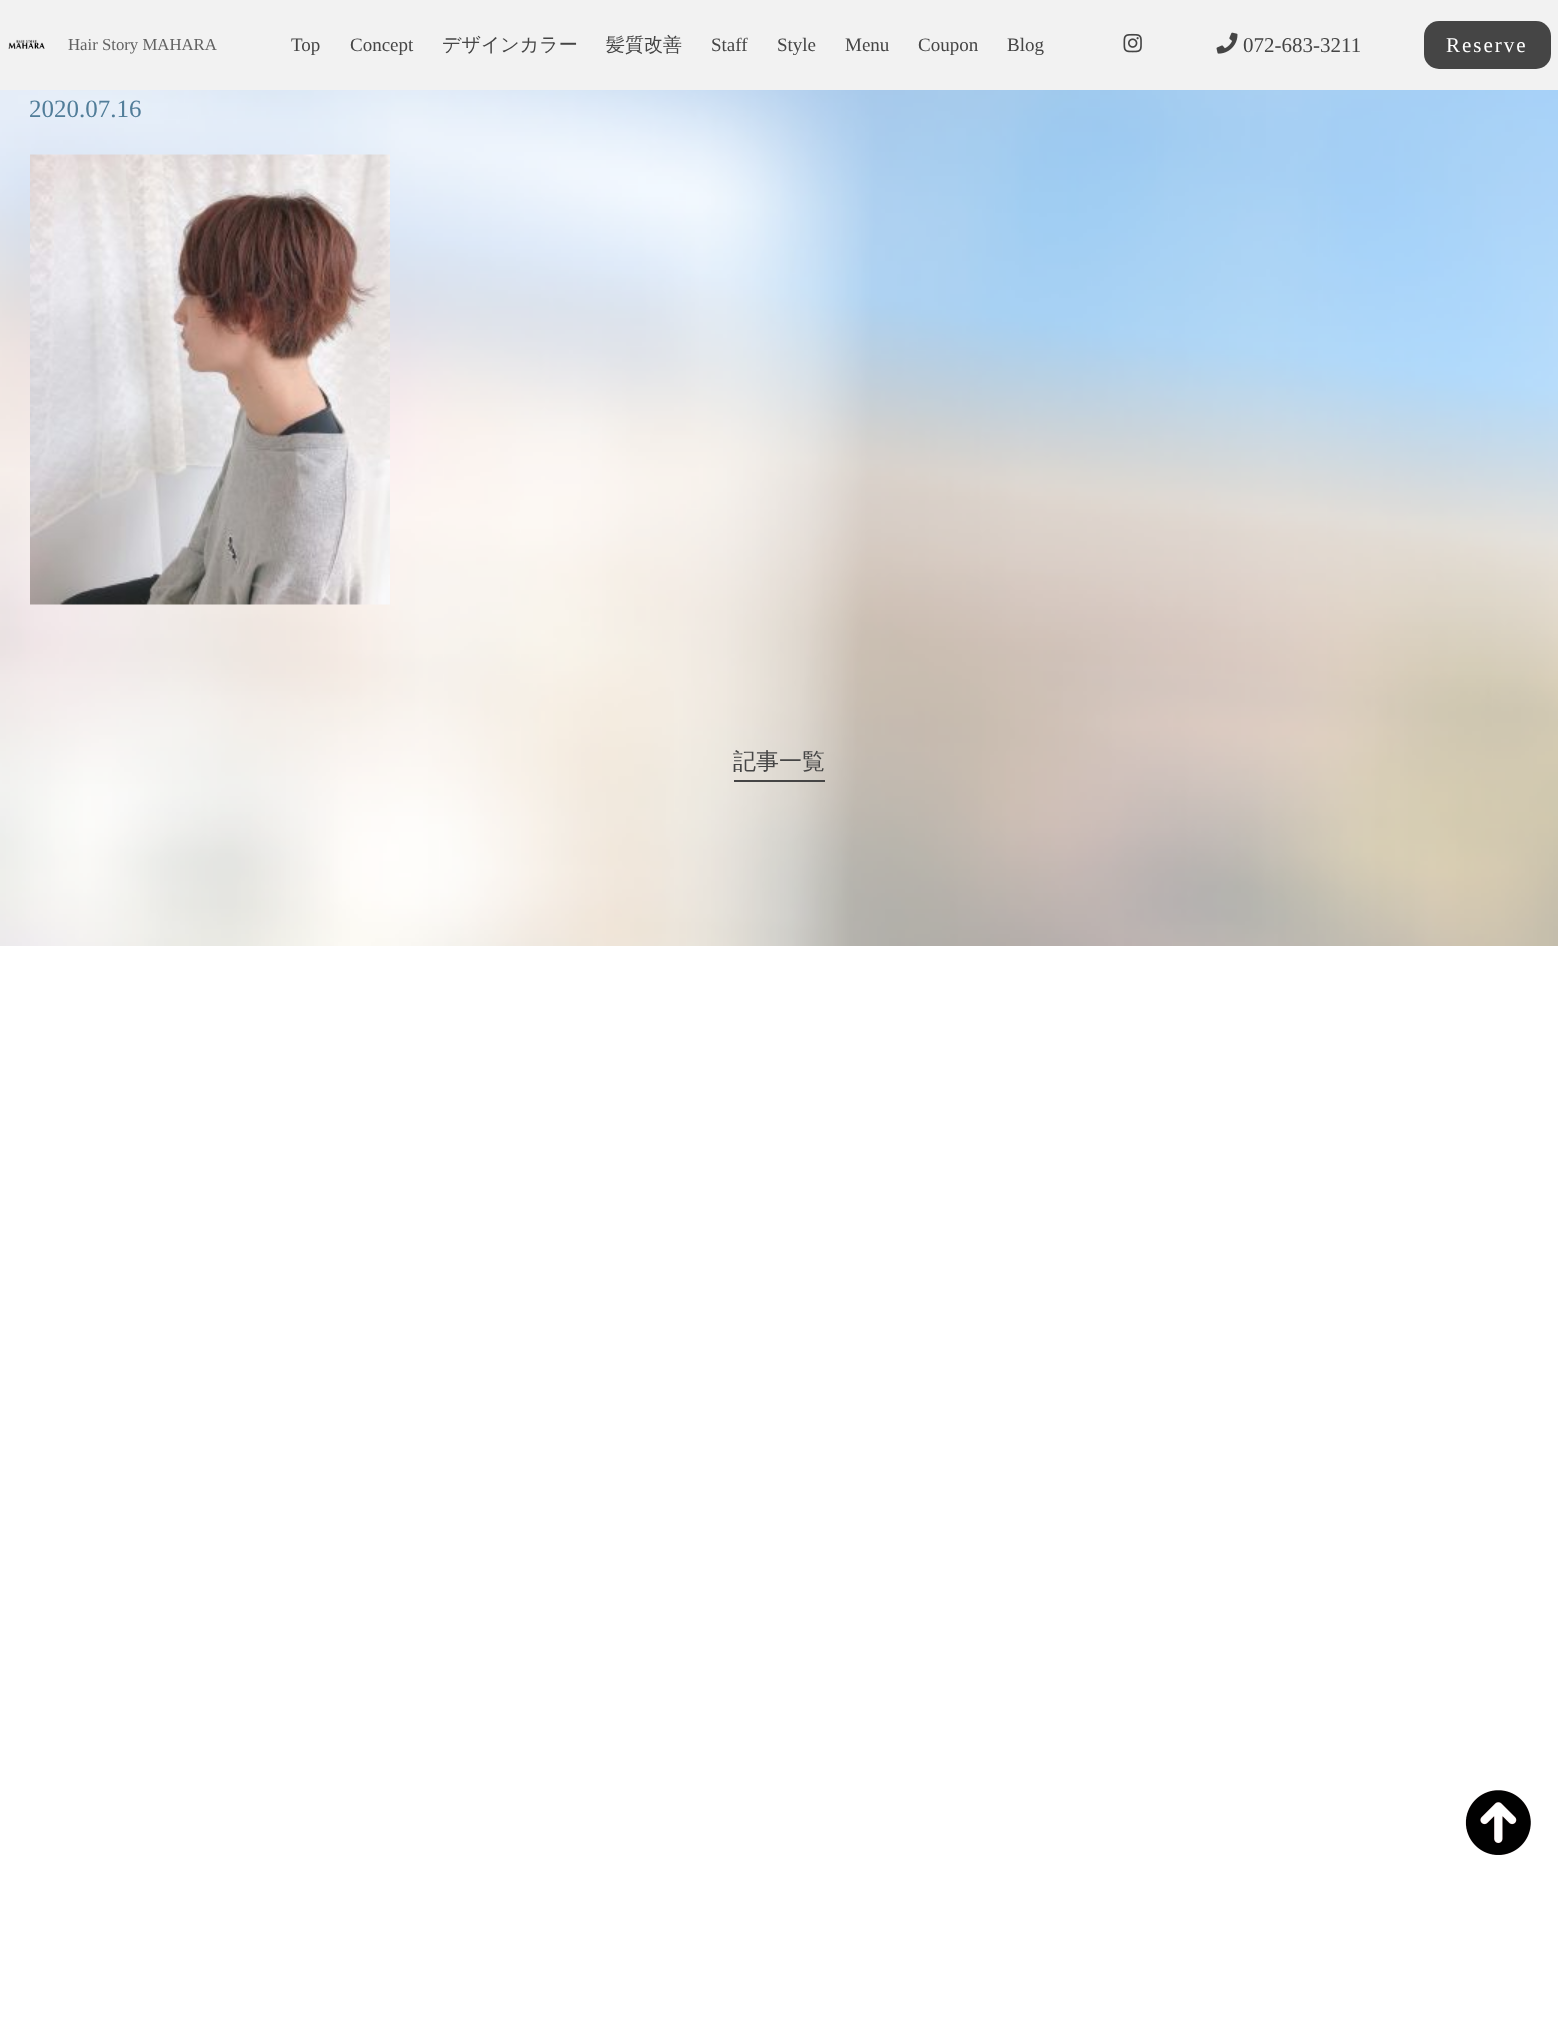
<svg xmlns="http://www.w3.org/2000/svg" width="1558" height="2024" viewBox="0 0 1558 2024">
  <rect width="100%" height="100%" fill="rgb(255,255,255)"/>
  <image x="0" y="90" width="1558" height="856" href="pic1.png"/>
  <rect x="0" y="0" width="1558" height="90" fill="rgb(242,242,242)"/>
  <image x="8" y="39" width="37" height="10" href="pic2.png"/>
  <text x="68" y="50" font-family="Liberation Serif" font-size="16.75" fill="rgb(99,99,99)">Hair Story MAHARA</text>
  <g font-family="Liberation Serif" font-size="19" fill="rgb(69,69,69)">
    <text x="291" y="51">Top</text>
    <text x="350" y="51">Concept</text>
  </g>
  <g font-family="WenQuanYi Zen Hei" font-size="19" font-weight="500" fill="rgb(69,69,69)">
    <text x="442" y="51">デザインカラー</text>
    <text x="606" y="51">髪質改善</text>
  </g>
  <g font-family="Liberation Serif" font-size="19" fill="rgb(69,69,69)">
    <text x="711" y="51">Staff</text>
    <text x="777" y="51">Style</text>
    <text x="845" y="51">Menu</text>
    <text x="918" y="51">Coupon</text>
    <text x="1007" y="51">Blog</text>
  </g>
  <image x="1123" y="33" width="19" height="20" href="pic3.png"/>
  <image x="1216" y="32" width="22" height="22" href="pic4.png"/>
  <text x="1243" y="52" font-family="Liberation Serif" font-size="21" fill="rgb(69,69,69)">072-683-3211</text>
  <rect x="1424" y="21" width="127" height="48" rx="15" fill="rgb(69,69,69)"/>
  <text x="1446" y="52" font-family="Liberation Serif" font-size="21" letter-spacing="2" fill="rgb(255,255,255)">Reserve</text>
  <text x="29" y="117" font-family="Liberation Serif" font-size="25" fill="rgb(81,125,153)">2020.07.16</text>
  <image x="30" y="154" width="360" height="451" href="pic5.png"/>
  <text x="733" y="769" font-family="WenQuanYi Zen Hei" font-size="23" font-weight="500" fill="rgb(69,69,69)">記事一覧</text>
  <rect x="734" y="780" width="91" height="2" fill="rgb(69,69,69)"/>
  <image x="1465" y="1790" width="66" height="65" href="pic6.png"/>
</svg>
